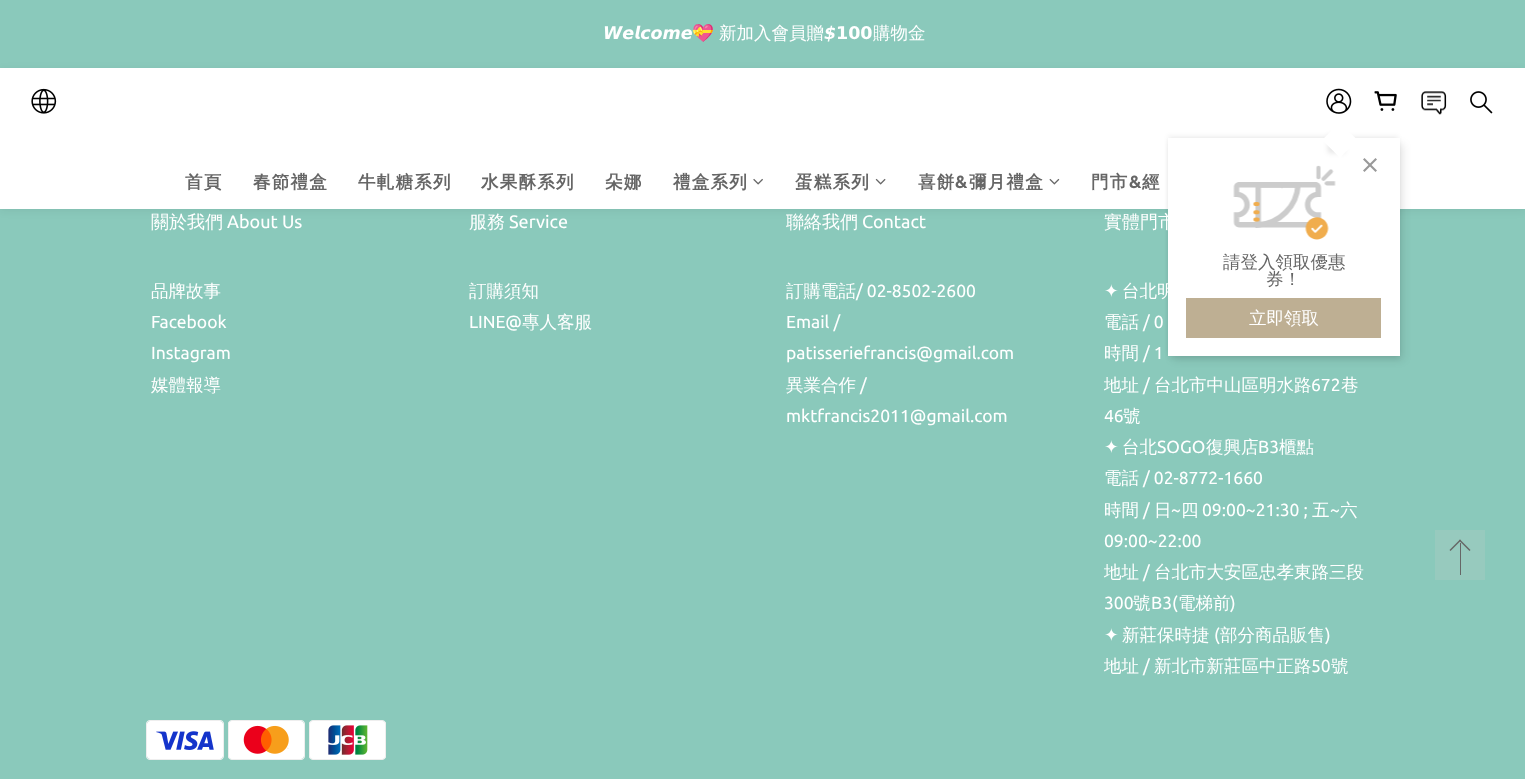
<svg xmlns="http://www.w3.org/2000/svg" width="1525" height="779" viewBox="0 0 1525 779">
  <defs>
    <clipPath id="clip1"><path d="M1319 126H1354V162H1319ZM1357.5 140L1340 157.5L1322 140L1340 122.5Z" clip-rule="evenodd"/></clipPath>
  </defs>
  <rect width="100%" height="100%" fill="rgb(138,201,187)"/>
  <text x="603" y="39" font-family="DejaVu Sans" font-size="17.5" font-weight="bold" font-style="italic" fill="rgb(255,255,255)">𝙒𝙚𝙡𝙘𝙤𝙢𝙚</text>
  <text x="692" y="39" font-family="Noto Color Emoji" font-size="17.5" fill="rgb(255,255,255)">💝</text>
  <text x="719" y="39" font-family="WenQuanYi Zen Hei" font-size="17.5" font-weight="500" fill="rgb(255,255,255)">新加入會員贈</text>
  <text x="824" y="39" font-family="DejaVu Sans" font-size="17.5" font-weight="bold" font-style="italic" fill="rgb(255,255,255)">$</text>
  <text x="836" y="39" font-family="DejaVu Sans" font-size="17.5" font-weight="bold" fill="rgb(255,255,255)">𝟭𝟬𝟬</text>
  <text x="873" y="39" font-family="WenQuanYi Zen Hei" font-size="17.5" font-weight="500" fill="rgb(255,255,255)">購物金</text>
  <rect x="0" y="70" width="1525" height="141" fill="rgba(0,0,0,0.06)" filter="blur(4px)"/>
  <rect x="0" y="68" width="1525" height="141" fill="rgb(255,255,255)"/>
  <g font-family="WenQuanYi Zen Hei" font-size="17.5" font-weight="bold" letter-spacing="1.25" fill="rgb(102,102,102)">
    <text x="185" y="188">首頁</text>
    <text x="253" y="188">春節禮盒</text>
    <text x="358" y="188">牛軋糖系列</text>
    <text x="481" y="188">水果酥系列</text>
    <text x="605" y="188">朵娜</text>
    <text x="673" y="188">禮盒系列</text>
  </g>
  <image x="753" y="178" width="10" height="7" href="pic1.png"/>
  <text x="795" y="188" font-family="WenQuanYi Zen Hei" font-size="17.5" font-weight="bold" letter-spacing="1.25" fill="rgb(102,102,102)">蛋糕系列</text>
  <image x="875" y="178" width="11" height="7" href="pic2.png"/>
  <text x="918" y="188" font-family="WenQuanYi Zen Hei" font-size="17.5" font-weight="bold" letter-spacing="1.25" fill="rgb(102,102,102)">喜餅</text>
  <text x="955" y="188" font-family="Ubuntu" font-size="17.5" font-weight="bold" letter-spacing="1.25" fill="rgb(102,102,102)">&amp;</text>
  <text x="969" y="188" font-family="WenQuanYi Zen Hei" font-size="17.5" font-weight="bold" letter-spacing="1.25" fill="rgb(102,102,102)">彌月禮盒</text>
  <image x="1049" y="178" width="11" height="7" href="pic3.png"/>
  <text x="1091" y="188" font-family="WenQuanYi Zen Hei" font-size="17.5" font-weight="bold" letter-spacing="1.25" fill="rgb(102,102,102)">門市</text>
  <text x="1129" y="188" font-family="Ubuntu" font-size="17.5" font-weight="bold" letter-spacing="1.25" fill="rgb(102,102,102)">&amp;</text>
  <text x="1142" y="188" font-family="WenQuanYi Zen Hei" font-size="17.5" font-weight="bold" letter-spacing="1.25" fill="rgb(102,102,102)">經</text>
  <image x="31" y="88" width="26" height="26" href="pic4.png"/>
  <image x="1374" y="91" width="23" height="20" href="pic5.png"/>
  <image x="1421" y="91" width="26" height="24" href="pic6.png"/>
  <image x="1470" y="91" width="23" height="23" href="pic7.png"/>
  <image x="1326" y="88" width="26" height="26" href="pic8.png"/>
  <rect x="1168" y="136" width="230" height="217" fill="rgba(0,0,0,0.06)" filter="blur(2.5px)"/>
  <rect x="1169" y="141" width="230" height="217" fill="rgba(0,0,0,0.06)" filter="blur(2.5px)"/>
  <rect x="1173" y="144" width="230" height="216" fill="rgba(0,0,0,0.1)" filter="blur(4px)"/>
  <rect x="1168" y="138" width="232" height="218" fill="rgb(255,255,255)"/>
  <g clip-path="url(#clip1)">
    <rect x="1328" y="135" width="17" height="18" fill="rgba(0,0,0,0.1)" filter="blur(2.5px)"/>
  </g>
  <path d="M1322 140L1340 122.5V140ZM1340 122.5L1357.5 140H1340Z" fill="rgb(255,255,255)"/>
  <path d="M1375.5 158L1377 159.5L1364.5 172L1363 170.5Z" fill="rgb(153,153,153)"/>
  <path d="M1363 159.5L1364.5 158L1377 170.5L1375.5 172Z" fill="rgb(153,153,153)"/>
  <image x="1233" y="165" width="103" height="75" href="pic9.png"/>
  <g font-family="WenQuanYi Zen Hei" font-size="17.5" font-weight="500" fill="rgb(102,102,102)">
    <text x="1223" y="268">請登入領取優惠</text>
    <text x="1266" y="285">券！</text>
  </g>
  <rect x="1186" y="298" width="195" height="40" fill="rgb(190,175,147)"/>
  <text x="1249" y="324" font-family="WenQuanYi Zen Hei" font-size="17.5" font-weight="500" fill="rgb(255,255,255)">立即領取</text>
  <text x="151" y="228" font-family="WenQuanYi Zen Hei" font-size="18" font-weight="500" fill="rgb(255,255,255)">關於我們</text>
  <text x="227" y="228" font-family="Ubuntu" font-size="18" fill="rgb(255,255,255)">About Us</text>
  <text x="151" y="297" font-family="WenQuanYi Zen Hei" font-size="17.5" font-weight="500" fill="rgb(255,255,255)">品牌故事</text>
  <g font-family="Ubuntu" font-size="17.5" fill="rgb(255,255,255)">
    <text>
      <tspan x="151" y="328">Facebook</tspan>
      <tspan x="151" y="359">Instagram</tspan>
    </text>
  </g>
  <text x="151" y="391" font-family="WenQuanYi Zen Hei" font-size="17.5" font-weight="500" fill="rgb(255,255,255)">媒體報導</text>
  <text x="469" y="228" font-family="WenQuanYi Zen Hei" font-size="18" font-weight="500" fill="rgb(255,255,255)">服務</text>
  <text x="509" y="228" font-family="Ubuntu" font-size="18" fill="rgb(255,255,255)">Service</text>
  <text x="469" y="297" font-family="WenQuanYi Zen Hei" font-size="17.5" font-weight="500" fill="rgb(255,255,255)">訂購須知</text>
  <text x="469" y="328" font-family="Ubuntu" font-size="17.5" fill="rgb(255,255,255)">LINE@</text>
  <text x="522" y="328" font-family="WenQuanYi Zen Hei" font-size="17.5" font-weight="500" fill="rgb(255,255,255)">專人客服</text>
  <text x="786" y="228" font-family="WenQuanYi Zen Hei" font-size="18" font-weight="500" fill="rgb(255,255,255)">聯絡我們</text>
  <text x="862" y="228" font-family="Ubuntu" font-size="18" fill="rgb(255,255,255)">Contact</text>
  <text x="786" y="297" font-family="WenQuanYi Zen Hei" font-size="17.5" font-weight="500" fill="rgb(255,255,255)">訂購電話</text>
  <g font-family="Ubuntu" font-size="17.5" fill="rgb(255,255,255)">
    <text x="856" y="297">/ 02-8502-2600</text>
    <text>
      <tspan x="786" y="328">Email /</tspan>
      <tspan x="786" y="359">patisseriefrancis@gmail.com</tspan>
    </text>
  </g>
  <text x="786" y="391" font-family="WenQuanYi Zen Hei" font-size="17.5" font-weight="500" fill="rgb(255,255,255)">異業合作</text>
  <g font-family="Ubuntu" font-size="17.5" fill="rgb(255,255,255)">
    <text x="860" y="391">/</text>
    <text x="786" y="422">mktfrancis2011@gmail.com</text>
  </g>
  <text x="1104" y="228" font-family="WenQuanYi Zen Hei" font-size="18" font-weight="500" fill="rgb(255,255,255)">實體門市</text>
  <text x="1104" y="297" font-family="DejaVu Sans" font-size="17.5" fill="rgb(255,255,255)">✦</text>
  <g font-family="WenQuanYi Zen Hei" font-size="17.5" font-weight="500" fill="rgb(255,255,255)">
    <text x="1122" y="297">台北明</text>
    <text x="1104" y="328">電話</text>
  </g>
  <text x="1143" y="328" font-family="Ubuntu" font-size="17.5" fill="rgb(255,255,255)">/ 0</text>
  <text x="1104" y="359" font-family="WenQuanYi Zen Hei" font-size="17.5" font-weight="500" fill="rgb(255,255,255)">時間</text>
  <text x="1143" y="359" font-family="Ubuntu" font-size="17.5" fill="rgb(255,255,255)">/ 1</text>
  <text x="1104" y="391" font-family="WenQuanYi Zen Hei" font-size="17.5" font-weight="500" fill="rgb(255,255,255)">地址</text>
  <text x="1143" y="391" font-family="Ubuntu" font-size="17.5" fill="rgb(255,255,255)">/</text>
  <text x="1154" y="391" font-family="WenQuanYi Zen Hei" font-size="17.5" font-weight="500" fill="rgb(255,255,255)">台北市中山區明水路</text>
  <text x="1311" y="391" font-family="Ubuntu" font-size="17.5" fill="rgb(255,255,255)">672</text>
  <text x="1341" y="391" font-family="WenQuanYi Zen Hei" font-size="17.5" font-weight="500" fill="rgb(255,255,255)">巷</text>
  <text x="1104" y="422" font-family="Ubuntu" font-size="17.5" fill="rgb(255,255,255)">46</text>
  <text x="1123" y="422" font-family="WenQuanYi Zen Hei" font-size="17.5" font-weight="500" fill="rgb(255,255,255)">號</text>
  <text x="1104" y="453" font-family="DejaVu Sans" font-size="17.5" fill="rgb(255,255,255)">✦</text>
  <text x="1122" y="453" font-family="WenQuanYi Zen Hei" font-size="17.5" font-weight="500" fill="rgb(255,255,255)">台北</text>
  <text x="1157" y="453" font-family="Ubuntu" font-size="17.5" fill="rgb(255,255,255)">SOGO</text>
  <text x="1206" y="453" font-family="WenQuanYi Zen Hei" font-size="17.5" font-weight="500" fill="rgb(255,255,255)">復興店</text>
  <text x="1258" y="453" font-family="Ubuntu" font-size="17.5" fill="rgb(255,255,255)">B3</text>
  <g font-family="WenQuanYi Zen Hei" font-size="17.5" font-weight="500" fill="rgb(255,255,255)">
    <text x="1279" y="453">櫃點</text>
    <text x="1104" y="484">電話</text>
  </g>
  <text x="1143" y="484" font-family="Ubuntu" font-size="17.5" fill="rgb(255,255,255)">/ 02-8772-1660</text>
  <text x="1104" y="516" font-family="WenQuanYi Zen Hei" font-size="17.5" font-weight="500" fill="rgb(255,255,255)">時間</text>
  <text x="1143" y="516" font-family="Ubuntu" font-size="17.5" fill="rgb(255,255,255)">/</text>
  <text x="1154" y="516" font-family="WenQuanYi Zen Hei" font-size="17.5" font-weight="500" fill="rgb(255,255,255)">日</text>
  <text x="1171" y="516" font-family="Ubuntu" font-size="17.5" fill="rgb(255,255,255)">~</text>
  <text x="1181" y="516" font-family="WenQuanYi Zen Hei" font-size="17.5" font-weight="500" fill="rgb(255,255,255)">四</text>
  <text x="1202" y="516" font-family="Ubuntu" font-size="17.5" fill="rgb(255,255,255)">09:00~21:30 ;</text>
  <text x="1312" y="516" font-family="WenQuanYi Zen Hei" font-size="17.5" font-weight="500" fill="rgb(255,255,255)">五</text>
  <text x="1330" y="516" font-family="Ubuntu" font-size="17.5" fill="rgb(255,255,255)">~</text>
  <text x="1340" y="516" font-family="WenQuanYi Zen Hei" font-size="17.5" font-weight="500" fill="rgb(255,255,255)">六</text>
  <text x="1104" y="547" font-family="Ubuntu" font-size="17.5" fill="rgb(255,255,255)">09:00~22:00</text>
  <text x="1104" y="578" font-family="WenQuanYi Zen Hei" font-size="17.5" font-weight="500" fill="rgb(255,255,255)">地址</text>
  <text x="1143" y="578" font-family="Ubuntu" font-size="17.5" fill="rgb(255,255,255)">/</text>
  <text x="1154" y="578" font-family="WenQuanYi Zen Hei" font-size="17.5" font-weight="500" fill="rgb(255,255,255)">台北市大安區忠孝東路三段</text>
  <text x="1104" y="609" font-family="Ubuntu" font-size="17.5" fill="rgb(255,255,255)">300</text>
  <text x="1133" y="609" font-family="WenQuanYi Zen Hei" font-size="17.5" font-weight="500" fill="rgb(255,255,255)">號</text>
  <text x="1151" y="609" font-family="Ubuntu" font-size="17.5" fill="rgb(255,255,255)">B3(</text>
  <text x="1178" y="609" font-family="WenQuanYi Zen Hei" font-size="17.5" font-weight="500" fill="rgb(255,255,255)">電梯前</text>
  <text x="1230" y="609" font-family="Ubuntu" font-size="17.5" fill="rgb(255,255,255)">)</text>
  <text x="1104" y="641" font-family="DejaVu Sans" font-size="17.5" fill="rgb(255,255,255)">✦</text>
  <text x="1122" y="641" font-family="WenQuanYi Zen Hei" font-size="17.5" font-weight="500" fill="rgb(255,255,255)">新莊保時捷</text>
  <text x="1214" y="641" font-family="Ubuntu" font-size="17.5" fill="rgb(255,255,255)">(</text>
  <text x="1220" y="641" font-family="WenQuanYi Zen Hei" font-size="17.5" font-weight="500" fill="rgb(255,255,255)">部分商品販售</text>
  <text x="1325" y="641" font-family="Ubuntu" font-size="17.5" fill="rgb(255,255,255)">)</text>
  <text x="1104" y="672" font-family="WenQuanYi Zen Hei" font-size="17.5" font-weight="500" fill="rgb(255,255,255)">地址</text>
  <text x="1143" y="672" font-family="Ubuntu" font-size="17.5" fill="rgb(255,255,255)">/</text>
  <text x="1154" y="672" font-family="WenQuanYi Zen Hei" font-size="17.5" font-weight="500" fill="rgb(255,255,255)">新北市新莊區中正路</text>
  <text x="1311" y="672" font-family="Ubuntu" font-size="17.5" fill="rgb(255,255,255)">50</text>
  <text x="1331" y="672" font-family="WenQuanYi Zen Hei" font-size="17.5" font-weight="500" fill="rgb(255,255,255)">號</text>
  <image x="146" y="720" width="78" height="40" href="pic10.png"/>
  <image x="228" y="720" width="77" height="40" href="pic11.png"/>
  <image x="309" y="720" width="77" height="40" href="pic12.png"/>
  <rect x="1435" y="530" width="50" height="50" fill="rgb(151,202,190)"/>
  <path d="M1460 539.5L1470.5 550L1469.5 551L1459 540.5Z" fill="rgb(102,102,102)"/>
  <path d="M1460 539.5L1461 540.5L1450.5 551L1449.5 550Z" fill="rgb(102,102,102)"/>
  <rect x="1460" y="543" width="1" height="32" fill="rgb(102,102,102)"/>
</svg>
